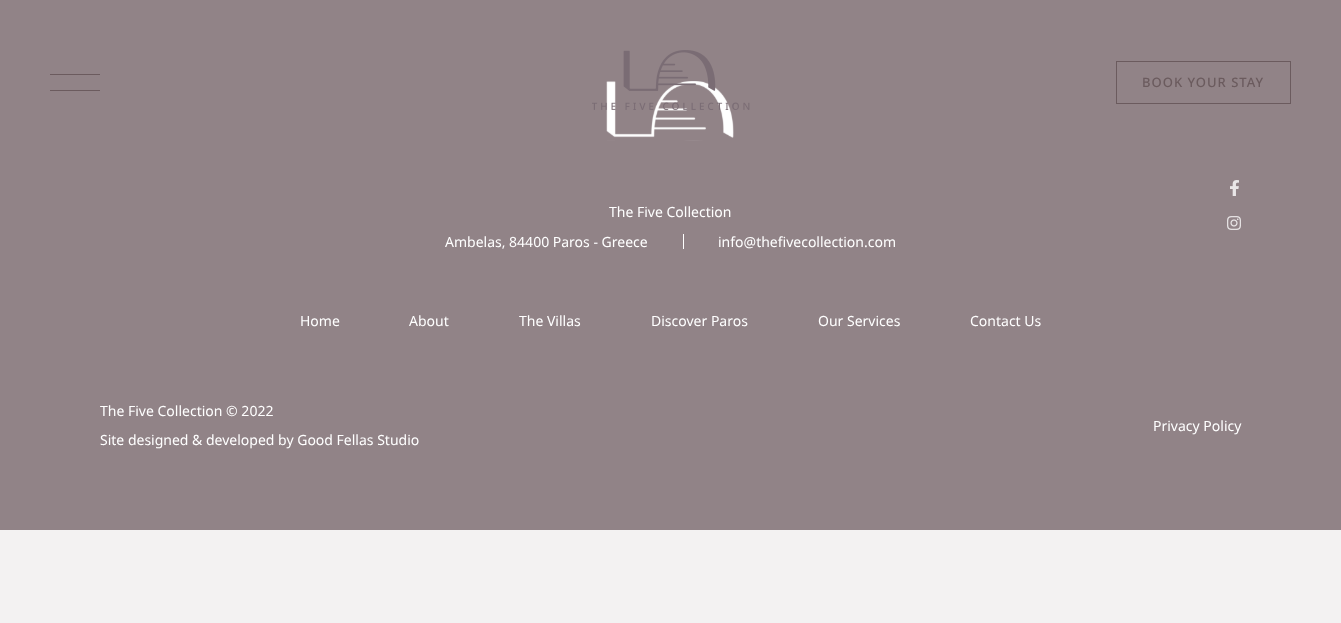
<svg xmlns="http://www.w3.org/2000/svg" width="1341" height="623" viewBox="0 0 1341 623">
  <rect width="100%" height="100%" fill="rgb(243,242,242)"/>
  <rect x="0" y="0" width="1341" height="530" fill="rgb(145,131,135)"/>
  <rect x="50" y="74" width="50" height="1" fill="rgb(107,91,94)"/>
  <rect x="50" y="90" width="50" height="1" fill="rgb(107,91,94)"/>
  <image x="606" y="81" width="128" height="60" href="pic2.png"/>
  <image x="592" y="50" width="158" height="60" href="pic1.png"/>
  <rect x="1116.5" y="61.5" width="174" height="42" fill="none" stroke="rgb(107,91,94)"/>
  <text x="1142" y="87" font-family="Noto Sans" font-size="13" font-weight="500" letter-spacing="1" fill="rgb(107,91,94)">BOOK YOUR STAY</text>
  <g font-family="Noto Sans" font-size="14" fill="rgb(255,255,255)">
    <text x="609" y="217">The Five Collection</text>
    <text x="445" y="247">Ambelas, 84400 Paros - Greece</text>
  </g>
  <rect x="683" y="234" width="1" height="15" fill="rgb(255,255,255)"/>
  <text x="718" y="247" font-family="Noto Sans" font-size="14" fill="rgb(255,255,255)">info@thefivecollection.com</text>
  <image x="1230" y="180" width="9" height="16" href="pic3.png"/>
  <image x="1227" y="216" width="14" height="14" href="pic4.png"/>
  <g font-family="Noto Sans" font-size="14" fill="rgb(255,255,255)">
    <text x="300" y="326">Home</text>
    <text x="409" y="326">About</text>
    <text x="519" y="326">The Villas</text>
    <text x="651" y="326">Discover Paros</text>
    <text x="818" y="326">Our Services</text>
    <text x="970" y="326">Contact Us</text>
    <text x="100" y="416">The Five Collection © 2022</text>
    <text x="100" y="445">Site designed &amp; developed by Good Fellas Studio</text>
    <text x="1153" y="431">Privacy Policy</text>
  </g>
</svg>
